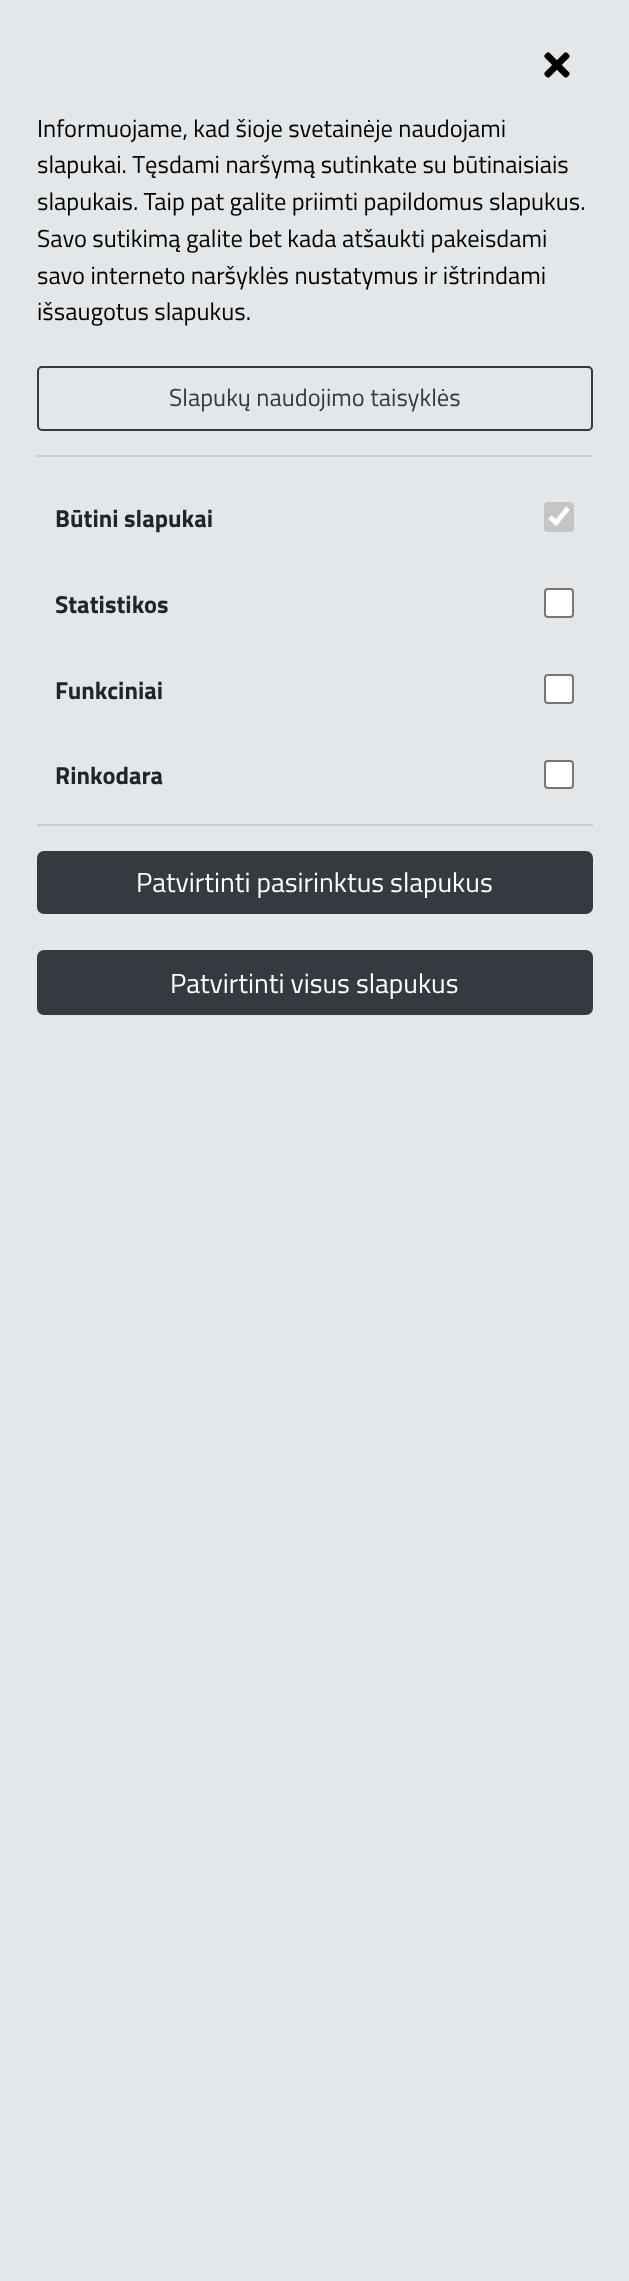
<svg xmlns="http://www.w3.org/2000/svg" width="629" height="2281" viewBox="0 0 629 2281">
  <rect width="100%" height="100%" fill="rgb(228,231,233)"/>
  <image x="544" y="52" width="26" height="26" href="pic1.png"/>
  <g font-family="Titillium Web" font-size="24.5" fill="rgb(0,0,0)">
    <text>
      <tspan x="37" y="137">Informuojame, kad šioje svetainėje naudojami</tspan>
      <tspan x="37" y="173">slapukai. Tęsdami naršymą sutinkate su būtinaisiais</tspan>
      <tspan x="37" y="210">slapukais. Taip pat galite priimti papildomus slapukus.</tspan>
      <tspan x="37" y="247">Savo sutikimą galite bet kada atšaukti pakeisdami</tspan>
      <tspan x="37" y="284">savo interneto naršyklės nustatymus ir ištrindami</tspan>
      <tspan x="37" y="320">išsaugotus slapukus.</tspan>
    </text>
  </g>
  <rect x="38" y="367" width="554" height="63" rx="4" fill="none" stroke="rgb(52,58,64)" stroke-width="2"/>
  <text x="169" y="406" font-family="Titillium Web" font-size="24.5" fill="rgb(52,58,64)">Slapukų naudojimo taisyklės</text>
  <rect x="37" y="455" width="556" height="2" fill="rgb(205,205,205)"/>
  <rect x="37" y="824" width="556" height="2" fill="rgb(205,205,205)"/>
  <text x="55" y="527" font-family="Titillium Web" font-size="24.5" font-weight="bold" fill="rgb(33,37,41)">Būtini slapukai</text>
  <rect x="544" y="502" width="30" height="30" rx="4" fill="rgb(195,197,199)"/>
  <path d="M550 517L556 523L568 508" fill="none" stroke="rgb(255,255,255)" stroke-width="4.8"/>
  <text x="55" y="613" font-family="Titillium Web" font-size="24.5" font-weight="bold" fill="rgb(33,37,41)">Statistikos</text>
  <rect x="545" y="589" width="28" height="28" rx="3" fill="rgb(255,255,255)" stroke="rgb(118,118,118)" stroke-width="2"/>
  <text x="55" y="699" font-family="Titillium Web" font-size="24.5" font-weight="bold" fill="rgb(33,37,41)">Funkciniai</text>
  <rect x="545" y="675" width="28" height="28" rx="3" fill="rgb(255,255,255)" stroke="rgb(118,118,118)" stroke-width="2"/>
  <text x="55" y="784" font-family="Titillium Web" font-size="24.5" font-weight="bold" fill="rgb(33,37,41)">Rinkodara</text>
  <rect x="545" y="761" width="28" height="27" rx="3" fill="rgb(255,255,255)" stroke="rgb(118,118,118)" stroke-width="2"/>
  <rect x="38" y="852" width="554" height="61" rx="6" fill="rgb(52,58,64)" stroke="rgb(52,58,64)" stroke-width="2"/>
  <text x="136" y="892" font-family="Titillium Web" font-size="27.5" fill="rgb(255,255,255)">Patvirtinti pasirinktus slapukus</text>
  <rect x="38" y="951" width="554" height="63" rx="6" fill="rgb(52,58,64)" stroke="rgb(52,58,64)" stroke-width="2"/>
  <text x="170" y="993" font-family="Titillium Web" font-size="27.5" fill="rgb(255,255,255)">Patvirtinti visus slapukus</text>
</svg>
